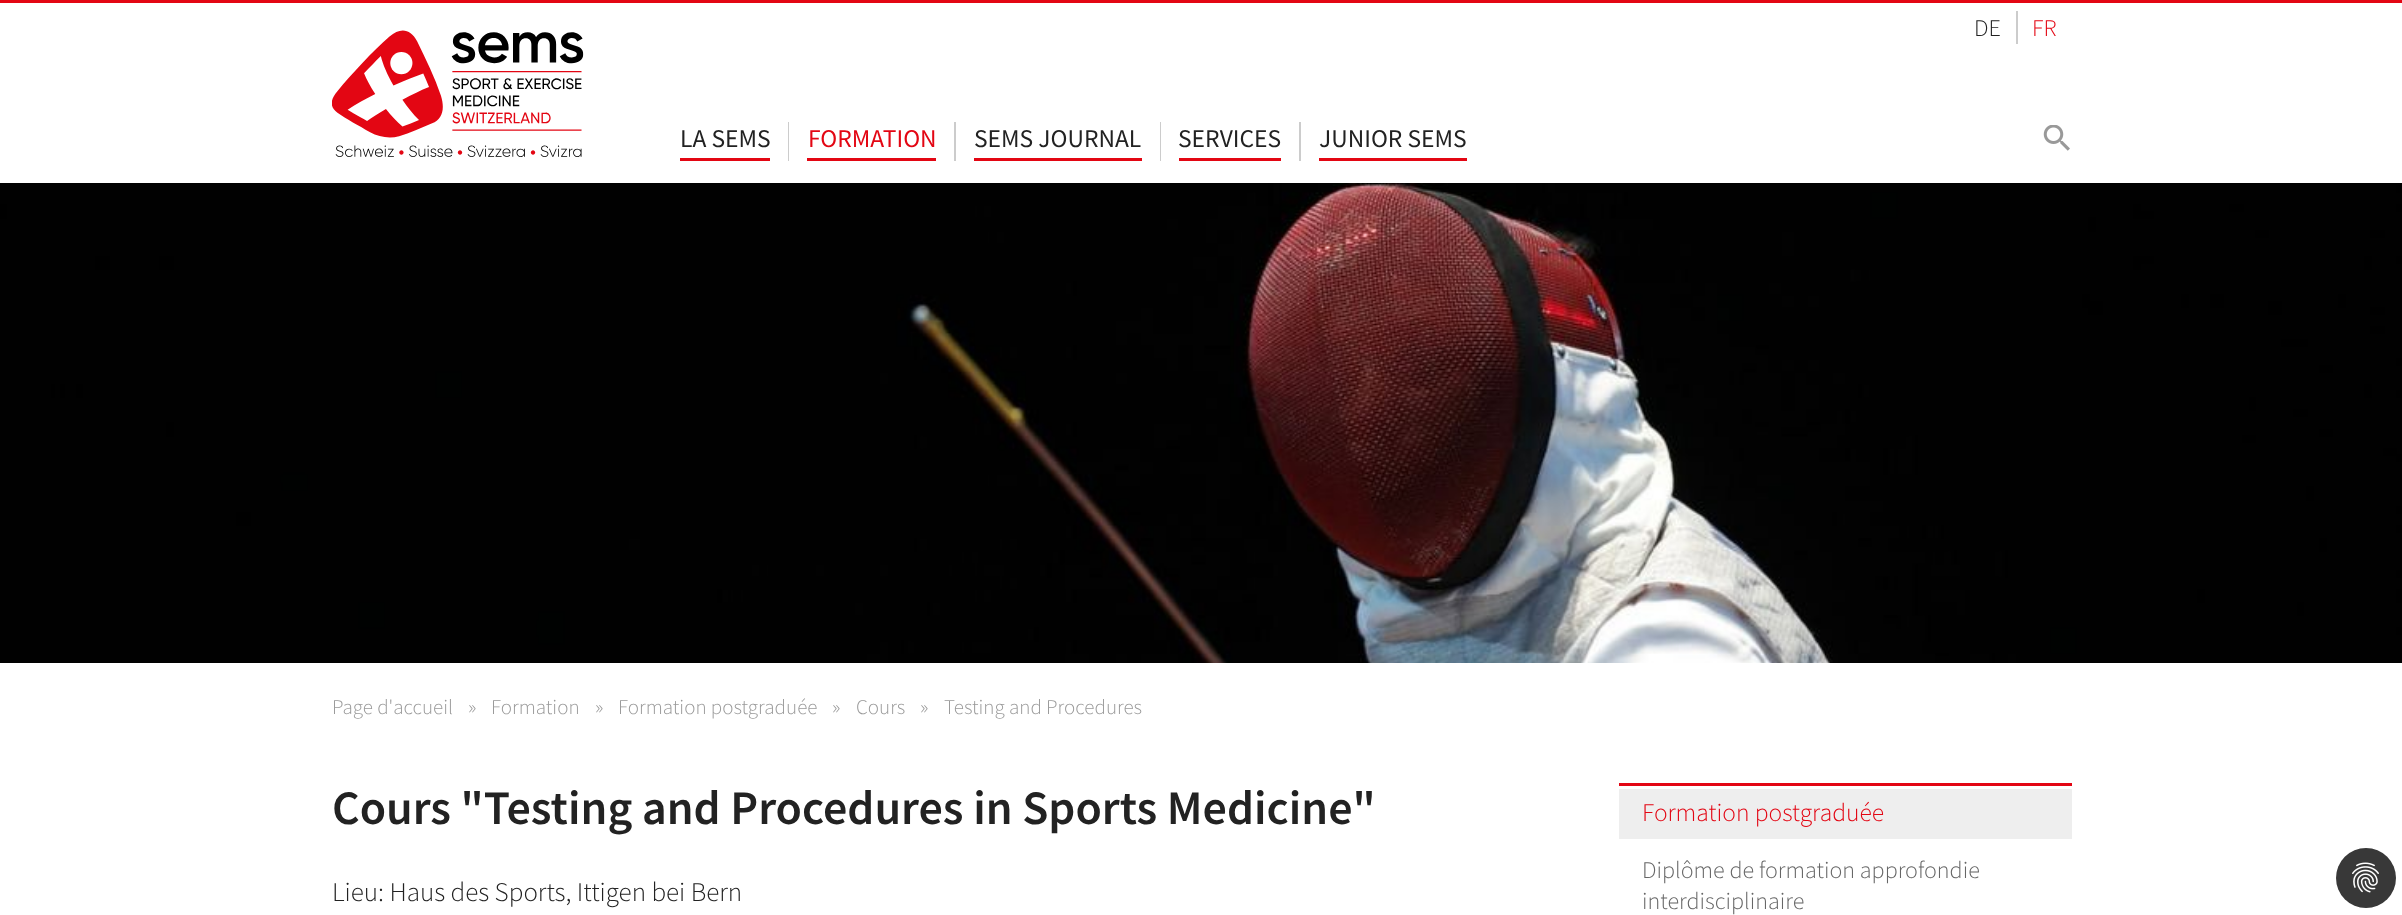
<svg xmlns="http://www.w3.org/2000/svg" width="2402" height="915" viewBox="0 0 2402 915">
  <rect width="100%" height="100%" fill="rgb(255,255,255)"/>
  <rect x="0" y="0" width="2402" height="3" fill="rgb(227,6,19)"/>
  <rect x="2016" y="11" width="2" height="33" fill="rgb(204,204,204)"/>
  <text x="1974" y="36" font-family="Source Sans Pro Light" font-size="24" font-weight="300" fill="rgb(34,34,34)">DE</text>
  <text x="2032" y="36" font-family="Source Sans Pro Light" font-size="24" font-weight="300" fill="rgb(227,6,19)">FR</text>
  <image x="332" y="30" width="252" height="127" href="pic1.png"/>
  <rect x="788" y="122" width="1" height="39" fill="rgb(204,204,204)"/>
  <rect x="680" y="158" width="90" height="3" fill="rgb(227,6,19)"/>
  <text x="680" y="147" font-family="Source Sans Pro" font-size="25.5" fill="rgb(34,34,34)">LA SEMS</text>
  <rect x="954" y="122" width="2" height="39" fill="rgb(204,204,204)"/>
  <rect x="807" y="158" width="129" height="3" fill="rgb(227,6,19)"/>
  <text x="808" y="147" font-family="Source Sans Pro" font-size="25.5" fill="rgb(227,6,19)">FORMATION</text>
  <rect x="1160" y="122" width="1" height="39" fill="rgb(204,204,204)"/>
  <rect x="974" y="158" width="168" height="3" fill="rgb(227,6,19)"/>
  <text x="974" y="147" font-family="Source Sans Pro" font-size="25.5" fill="rgb(34,34,34)">SEMS JOURNAL</text>
  <rect x="1299" y="122" width="2" height="39" fill="rgb(204,204,204)"/>
  <rect x="1179" y="158" width="102" height="3" fill="rgb(227,6,19)"/>
  <text x="1178" y="147" font-family="Source Sans Pro" font-size="25.5" fill="rgb(34,34,34)">SERVICES</text>
  <rect x="1319" y="158" width="148" height="3" fill="rgb(227,6,19)"/>
  <text x="1319" y="147" font-family="Source Sans Pro" font-size="25.5" fill="rgb(34,34,34)">JUNIOR SEMS</text>
  <image x="2043" y="125" width="27" height="26" href="pic2.png"/>
  <image x="0" y="183" width="2402" height="480" href="pic3.png"/>
  <g font-family="Source Sans Pro Light" font-size="21" font-weight="300" fill="rgb(153,153,153)">
    <text x="332" y="714">Page d'accueil</text>
    <text x="468" y="714">»</text>
    <text x="491" y="714">Formation</text>
    <text x="595" y="714">»</text>
    <text x="618" y="714">Formation postgraduée</text>
    <text x="832" y="714">»</text>
    <text x="856" y="714">Cours</text>
    <text x="920" y="714">»</text>
    <text x="944" y="714">Testing and Procedures</text>
  </g>
  <text x="332" y="824" font-family="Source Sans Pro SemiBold" font-size="48" font-weight="600" fill="rgb(34,34,34)">Cours "Testing and Procedures in Sports Medicine"</text>
  <text x="332" y="901" font-family="Source Sans Pro Light" font-size="27" font-weight="300" fill="rgb(34,34,34)">Lieu: Haus des Sports, Ittigen bei Bern</text>
  <rect x="1619" y="789" width="453" height="50" fill="rgb(238,238,238)"/>
  <rect x="1619" y="783" width="453" height="3" fill="rgb(227,6,19)"/>
  <text x="1642" y="821" font-family="Source Sans Pro Light" font-size="25.5" font-weight="300" fill="rgb(227,6,19)">Formation postgraduée</text>
  <g font-family="Source Sans Pro Light" font-size="24" font-weight="300" fill="rgb(102,102,102)">
    <text>
      <tspan x="1642" y="878">Diplôme de formation approfondie</tspan>
      <tspan x="1642" y="909">interdisciplinaire</tspan>
    </text>
  </g>
  <circle cx="2366" cy="878" r="30" fill="rgb(56,56,56)"/>
  <image x="2352" y="862" width="27" height="31" href="pic4.png"/>
</svg>
